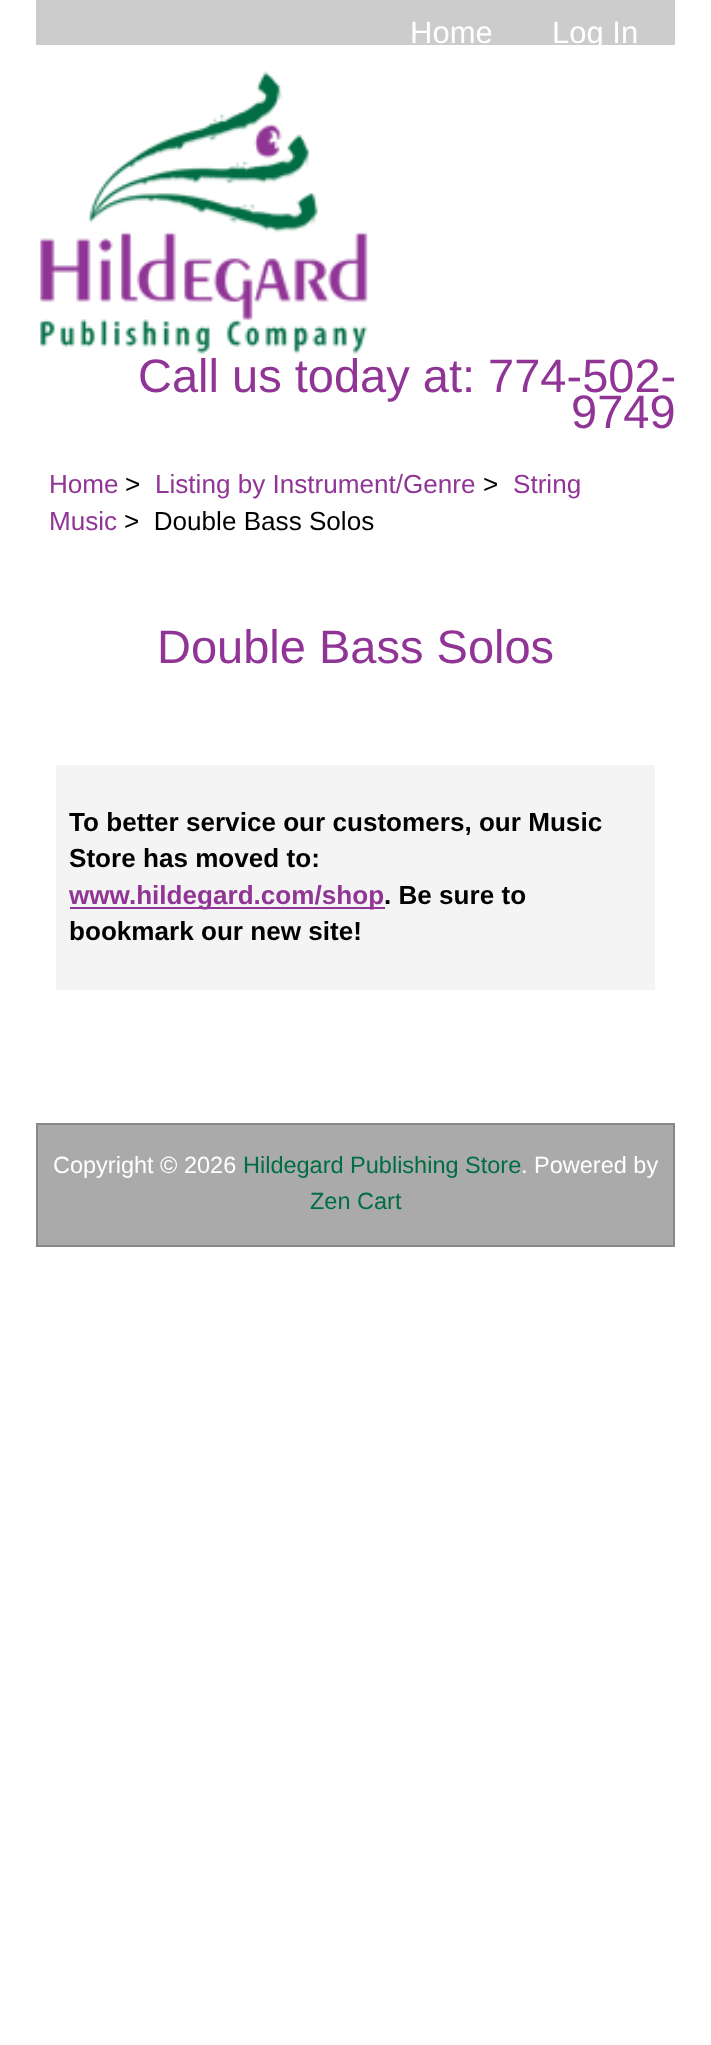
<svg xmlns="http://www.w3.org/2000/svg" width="711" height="2045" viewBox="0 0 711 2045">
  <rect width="100%" height="100%" fill="rgb(255,255,255)"/>
  <rect x="36" y="0" width="639" height="45" fill="rgb(204,204,204)"/>
  <g font-family="Liberation Sans" font-size="31" fill="rgb(255,255,255)">
    <text x="410" y="43">Home</text>
    <text x="552" y="43">Log In</text>
  </g>
  <image x="40" y="71" width="328" height="283" href="pic1.png"/>
  <g font-family="Liberation Sans" font-size="47" fill="rgb(144,53,150)">
    <text x="138" y="392">Call us today at: 774-502-</text>
    <text x="571" y="428">9749</text>
  </g>
  <text x="49" y="493" font-family="Liberation Sans" font-size="26.1" fill="rgb(144,53,150)">Home</text>
  <text x="125" y="493" font-family="Liberation Sans" font-size="26.1" fill="rgb(0,0,0)">&gt;</text>
  <text x="155" y="493" font-family="Liberation Sans" font-size="26.1" fill="rgb(144,53,150)">Listing by Instrument/Genre</text>
  <text x="483" y="493" font-family="Liberation Sans" font-size="26.1" fill="rgb(0,0,0)">&gt;</text>
  <g font-family="Liberation Sans" font-size="26.1" fill="rgb(144,53,150)">
    <text x="513" y="493">String</text>
    <text x="49" y="530">Music</text>
  </g>
  <text x="124" y="530" font-family="Liberation Sans" font-size="26.1" fill="rgb(0,0,0)" xml:space="preserve">&gt;  Double Bass Solos</text>
  <text x="157" y="663" font-family="Liberation Sans" font-size="47" fill="rgb(144,53,150)">Double Bass Solos</text>
  <rect x="56" y="765" width="599" height="225" fill="rgb(244,244,244)"/>
  <g font-family="Liberation Sans" font-size="26.1" font-weight="bold" fill="rgb(0,0,0)">
    <text>
      <tspan x="69" y="831">To better service our customers, our Music</tspan>
      <tspan x="69" y="867">Store has moved to:</tspan>
    </text>
  </g>
  <rect x="70" y="907" width="315" height="2" fill="rgb(144,53,150)"/>
  <text x="69" y="904" font-family="Liberation Sans" font-size="26.1" font-weight="bold" fill="rgb(144,53,150)">www.hildegard.com/shop</text>
  <g font-family="Liberation Sans" font-size="26.1" font-weight="bold" fill="rgb(0,0,0)">
    <text x="384" y="904">. Be sure to</text>
    <text x="69" y="940">bookmark our new site!</text>
  </g>
  <rect x="37" y="1124" width="637" height="122" fill="rgb(170,170,170)" stroke="rgb(136,136,136)" stroke-width="2"/>
  <text x="53" y="1173" font-family="Liberation Sans" font-size="23.5" fill="rgb(255,255,255)">Copyright © 2026</text>
  <text x="243" y="1173" font-family="Liberation Sans" font-size="23.5" fill="rgb(1,109,68)">Hildegard Publishing Store</text>
  <text x="521" y="1173" font-family="Liberation Sans" font-size="23.5" fill="rgb(255,255,255)">. Powered by</text>
  <text x="310" y="1209" font-family="Liberation Sans" font-size="23.5" fill="rgb(1,109,68)">Zen Cart</text>
</svg>
